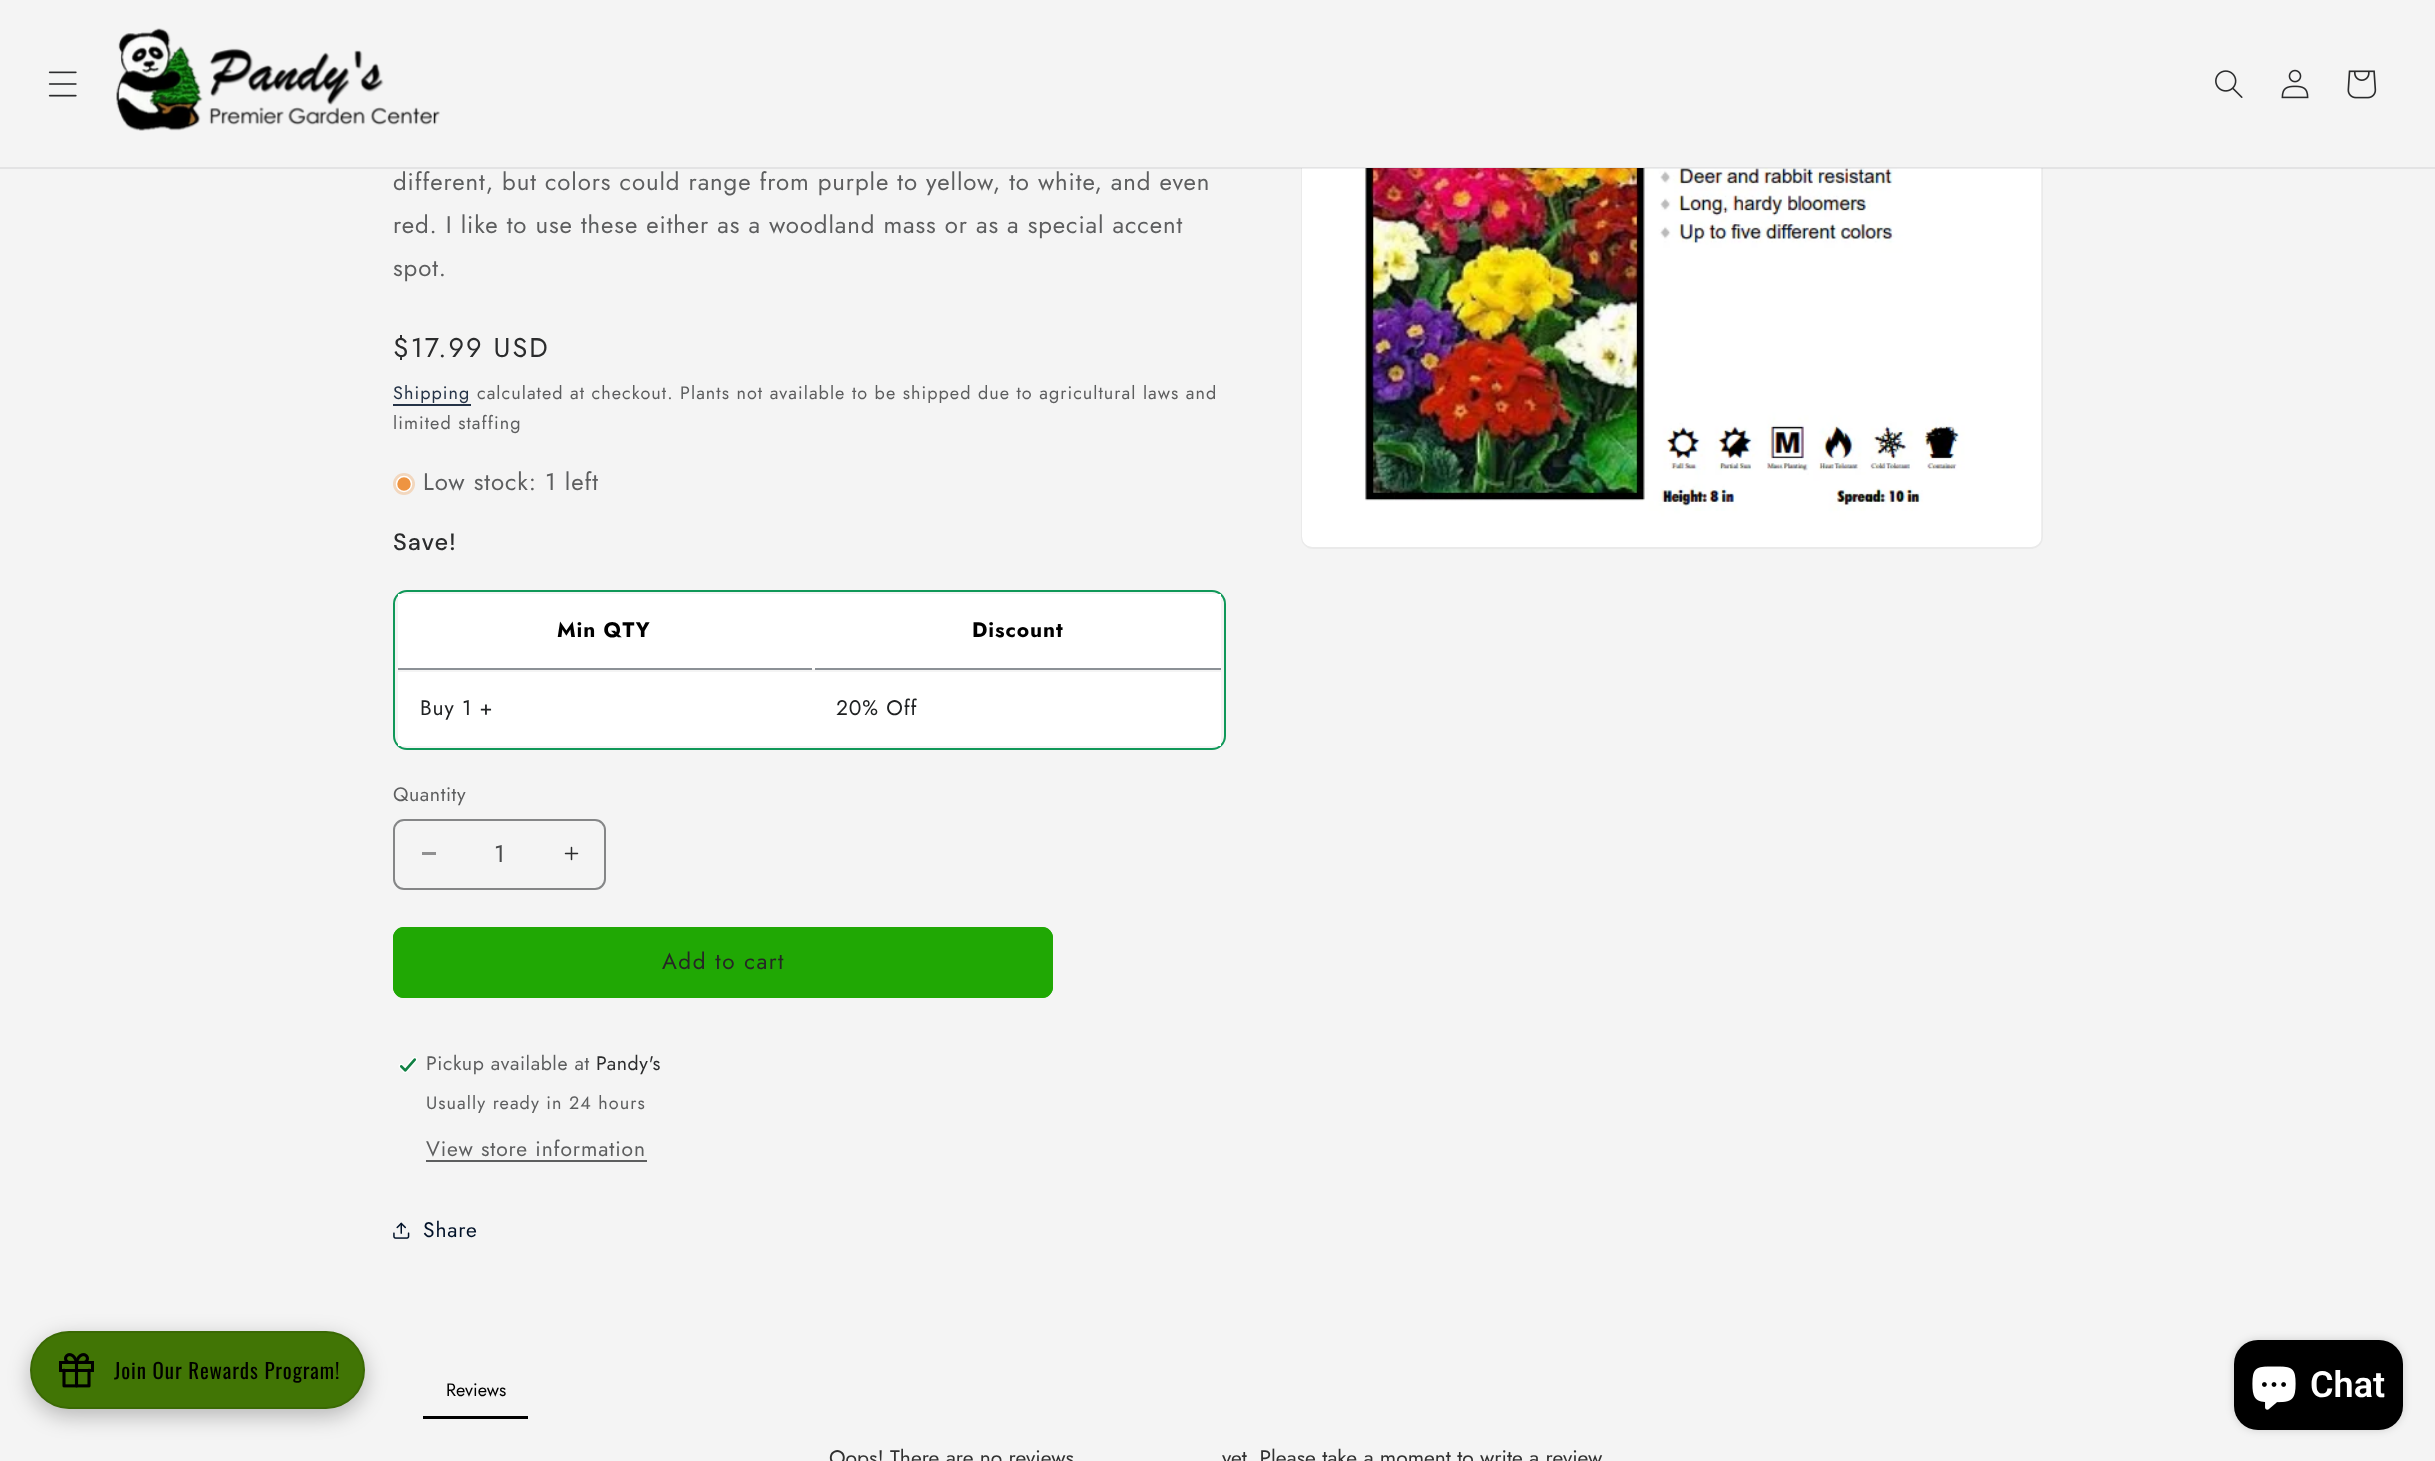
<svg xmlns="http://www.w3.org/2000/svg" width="2435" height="1461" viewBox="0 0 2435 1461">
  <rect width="100%" height="100%" fill="rgb(244,244,244)"/>
  <rect x="1302" y="46" width="740" height="502" rx="11" fill="none" stroke="rgb(234,234,234)" stroke-width="2"/>
  <rect x="1301" y="45" width="742" height="123" fill="rgb(244,244,244)"/>
  <image x="1302" y="168" width="740" height="379" href="pic10.png"/>
  <rect x="0" y="167" width="2435" height="2" fill="rgba(43,44,45,0.08)"/>
  <image x="48" y="71" width="29" height="26" href="pic1.png"/>
  <image x="116" y="28" width="324" height="103" href="pic2.png"/>
  <image x="2215" y="70" width="28" height="28" href="pic3.png"/>
  <image x="2281" y="69" width="28" height="30" href="pic4.png"/>
  <image x="2347" y="70" width="30" height="29" href="pic5.png"/>
  <rect x="30" y="1338" width="335" height="78" rx="39" fill="rgba(0,0,0,0.25)" filter="blur(11px)"/>
  <rect x="30" y="1331" width="335" height="78" rx="39" fill="rgb(65,117,5)"/>
  <rect x="31" y="1332" width="333" height="76" rx="38" fill="none" stroke="rgba(0,0,0,0.1)" stroke-width="2"/>
  <image x="59" y="1353" width="35" height="35" href="pic6.png"/>
  <text x="114" y="1379" font-family="Oswald" font-size="21" letter-spacing="0.9" fill="rgb(0,0,0)">Join Our Rewards Program!</text>
  <g font-family="Jost" font-size="24" letter-spacing="0.9" fill="rgb(93,94,95)">
    <text>
      <tspan x="393" y="190">different, but colors could range from purple to yellow, to white, and even</tspan>
      <tspan x="393" y="233">red. I like to use these either as a woodland mass or as a special accent</tspan>
      <tspan x="393" y="276">spot.</tspan>
    </text>
  </g>
  <text x="393" y="357" font-family="Jost" font-size="27" letter-spacing="2" fill="rgb(43,44,45)">$17.99 USD</text>
  <text x="393" y="399" font-family="Jost" font-size="18" letter-spacing="1.05" fill="rgb(37,51,71)">Shipping</text>
  <rect x="393" y="404" width="78" height="2" fill="rgb(37,51,71)"/>
  <g font-family="Jost" font-size="18" letter-spacing="1.05" fill="rgb(93,94,95)">
    <text x="477" y="399">calculated at checkout. Plants not available to be shipped due to agricultural laws and</text>
    <text x="393" y="429">limited staffing</text>
  </g>
  <circle cx="404" cy="484" r="11" fill="rgb(242,215,190)"/>
  <circle cx="404" cy="484" r="7.5" fill="rgb(238,148,65)" stroke="rgb(255,255,255)" stroke-width="1.5"/>
  <text x="423" y="490" font-family="Jost" font-size="24" letter-spacing="0.9" fill="rgb(93,94,95)">Low stock: 1 left</text>
  <text x="393" y="550" font-family="DM Sans" font-size="23.5" font-weight="500" letter-spacing="1" fill="rgb(43,44,45)">Save!</text>
  <rect x="394" y="591" width="831" height="158" rx="13" fill="none" stroke="rgb(16,152,89)" stroke-width="2"/>
  <rect x="398" y="594" width="823" height="75" fill="rgb(255,255,255)"/>
  <rect x="398" y="668" width="414" height="2" fill="rgb(140,145,150)"/>
  <text x="557" y="637" font-family="Jost" font-size="21" font-weight="bold" letter-spacing="0.9" fill="rgb(0,0,0)">Min QTY</text>
  <rect x="815" y="668" width="406" height="2" fill="rgb(140,145,150)"/>
  <text x="972" y="637" font-family="Jost" font-size="21" font-weight="bold" letter-spacing="0.9" fill="rgb(0,0,0)">Discount</text>
  <rect x="398" y="672" width="823" height="74" fill="rgb(255,255,255)"/>
  <g font-family="Jost" font-size="21" letter-spacing="0.9" fill="rgb(32,34,35)">
    <text x="420" y="715">Buy 1 +</text>
    <text x="836" y="715">20% Off</text>
  </g>
  <text x="393" y="801" font-family="Jost" font-size="19.5" letter-spacing="0.6" fill="rgb(93,94,95)">Quantity</text>
  <rect x="422" y="852" width="14" height="3" fill="rgb(144,144,145)"/>
  <image x="564" y="846" width="15" height="15" href="pic7.png"/>
  <rect x="394" y="820" width="211" height="69" rx="10" fill="none" stroke="rgb(133,134,135)" stroke-width="2"/>
  <text x="494" y="862" font-family="Jost" font-size="24" fill="rgb(73,74,75)">1</text>
  <rect x="393" y="927" width="660" height="71" rx="11" fill="rgb(32,168,4)"/>
  <rect x="394" y="928" width="658" height="69" rx="10" fill="none" stroke="rgb(32,168,4)" stroke-width="2"/>
  <text x="662" y="969" font-family="Jost" font-size="22.5" letter-spacing="1.5" fill="rgb(38,38,38)">Add to cart</text>
  <image x="398" y="1057" width="20" height="16" href="pic8.png"/>
  <text x="426" y="1070" font-family="Jost" font-size="19.5" letter-spacing="0.6" fill="rgb(93,94,95)">Pickup available at</text>
  <text x="596" y="1070" font-family="Jost" font-size="19.5" letter-spacing="0.6" fill="rgb(43,44,45)">Pandy's</text>
  <text x="426" y="1109" font-family="Jost" font-size="18" letter-spacing="1.05" fill="rgb(93,94,95)">Usually ready in 24 hours</text>
  <text x="426" y="1156" font-family="Jost" font-size="21" letter-spacing="0.9" fill="rgb(93,94,95)">View store information</text>
  <rect x="426" y="1160" width="221" height="2" fill="rgb(93,94,95)"/>
  <image x="393" y="1222" width="17" height="17" href="pic9.png"/>
  <text x="423" y="1237" font-family="Jost" font-size="21" letter-spacing="0.9" fill="rgb(0,17,40)">Share</text>
  <rect x="423" y="1416" width="105" height="3" fill="rgb(0,0,0)"/>
  <text x="446" y="1396" font-family="Jost" font-size="18" fill="rgb(0,0,0)">Reviews</text>
  <g font-family="Jost" font-size="21" fill="rgb(49,49,49)">
    <text x="829" y="1465">Oops! There are no reviews</text>
    <text x="1222" y="1465">yet. Please take a moment to write a review.</text>
  </g>
  <rect x="2234" y="1340" width="169" height="90" rx="24" fill="rgba(0,0,0,0.15)" filter="blur(4px)"/>
  <rect x="2234" y="1340" width="169" height="90" rx="24" fill="rgb(0,0,0)"/>
  <image x="2252" y="1366" width="44" height="44" href="pic11.png"/>
  <text x="2310" y="1397" font-family="Roboto" font-size="36" font-weight="600" fill="rgb(255,255,255)">Chat</text>
</svg>
